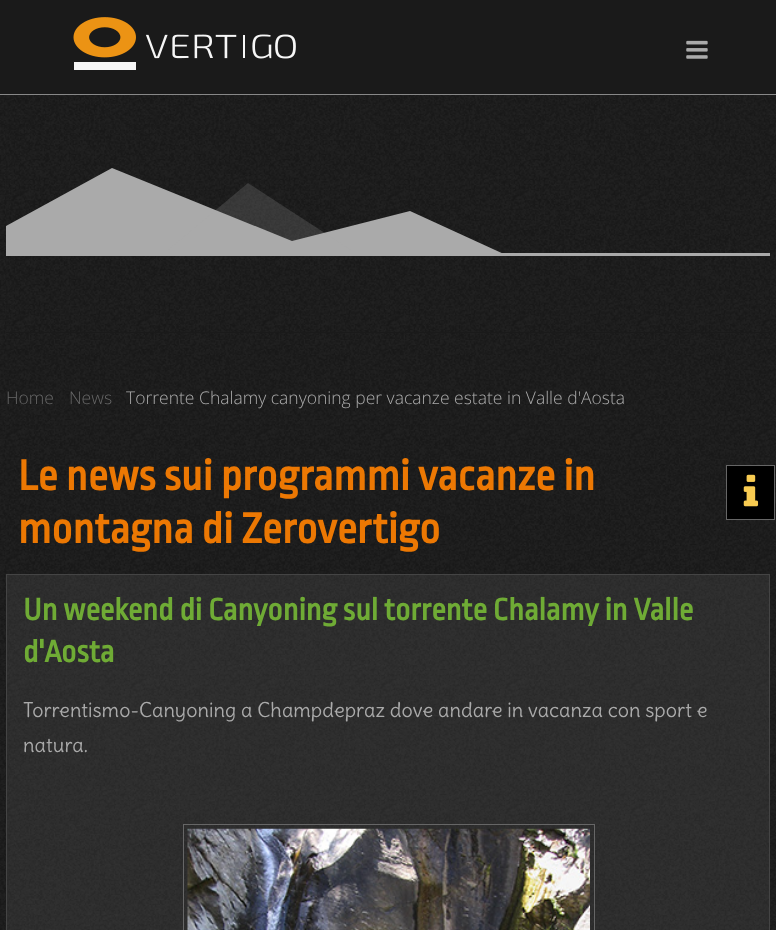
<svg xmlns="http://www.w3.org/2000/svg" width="776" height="930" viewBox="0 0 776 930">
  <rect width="100%" height="100%" fill="rgb(26,26,26)"/>
  <image x="0" y="95" width="776" height="31" href="pic1.png"/>
  <rect x="0" y="94" width="776" height="1" fill="rgb(136,136,136)"/>
  <image x="73" y="17" width="223" height="53" href="pic2.png"/>
  <image x="686" y="40" width="22" height="19" href="pic3.png"/>
  <image x="0" y="126" width="776" height="244" href="pic4.png"/>
  <rect x="6" y="133" width="764" height="200" fill="rgb(26,26,26)"/>
  <image x="6" y="133" width="764" height="199" href="pic5.png"/>
  <rect x="6" y="253" width="764" height="3" fill="rgb(170,170,170)"/>
  <path d="M6 226L112 168L292 241L410 211L506 255H6Z" fill="rgb(170,170,170)"/>
  <path d="M168 250L248 183L351 250Z" fill="rgba(170,170,170,0.2)"/>
  <image x="0" y="370" width="776" height="560" href="pic6.png"/>
  <g font-family="Open Sans" font-size="17.5" font-weight="300" fill="rgb(102,102,102)">
    <text x="6" y="404">Home</text>
    <text x="69" y="404">News</text>
  </g>
  <text x="126" y="404" font-family="Open Sans" font-size="17.5" font-weight="300" fill="rgb(170,170,170)">Torrente Chalamy canyoning per vacanze estate in Valle d'Aosta</text>
  <g font-family="Ropa Sans" font-size="45" font-weight="bold" fill="rgb(236,120,3)">
    <text>
      <tspan x="18" y="490">Le news sui programmi vacanze in</tspan>
      <tspan x="18" y="543">montagna di Zerovertigo</tspan>
    </text>
  </g>
  <rect x="6.5" y="574.5" width="763" height="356" fill="rgba(200,200,200,0.1)" stroke="rgb(68,68,68)"/>
  <g font-family="Ropa Sans" font-size="32.5" font-weight="bold" fill="rgb(111,171,53)">
    <text>
      <tspan x="23" y="620">Un weekend di Canyoning sul torrente Chalamy in Valle</tspan>
      <tspan x="23" y="662">d'Aosta</tspan>
    </text>
  </g>
  <g font-family="Delius" font-size="20" fill="rgb(170,170,170)">
    <text>
      <tspan x="23" y="717">Torrentismo-Canyoning a Champdepraz dove andare in vacanza con sport e</tspan>
      <tspan x="23" y="752">natura.</tspan>
    </text>
  </g>
  <rect x="183.5" y="824.5" width="411" height="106" fill="none" stroke="rgb(102,102,102)"/>
  <image x="187" y="828" width="403" height="102" href="pic7.png"/>
  <rect x="726.5" y="465.5" width="48" height="54" fill="rgb(0,0,0)" stroke="rgb(102,102,102)"/>
  <image x="743" y="474" width="16" height="33" href="pic8.png"/>
</svg>
